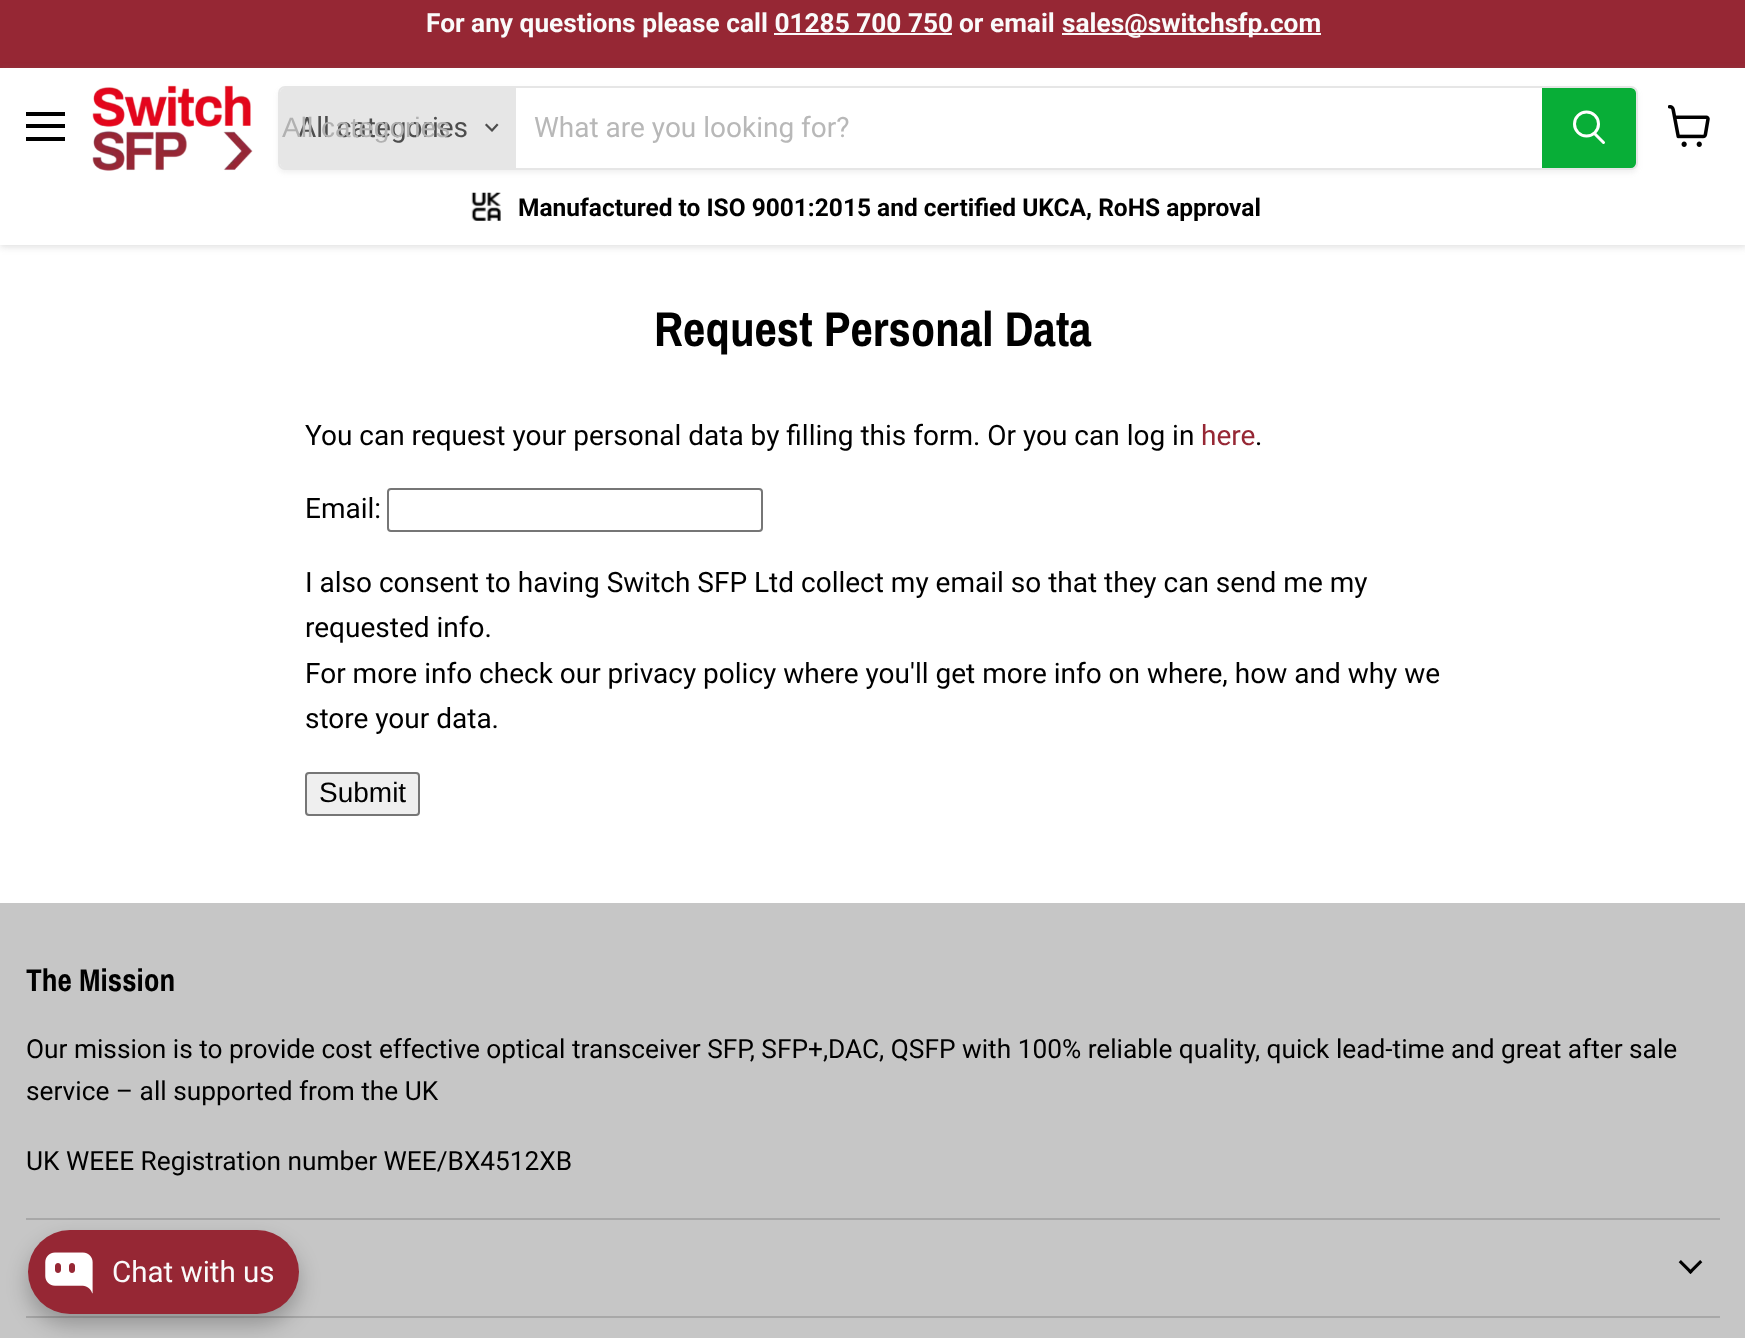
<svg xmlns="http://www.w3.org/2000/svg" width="1745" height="1338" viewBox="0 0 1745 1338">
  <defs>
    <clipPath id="clip1"><path d="M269 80H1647V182H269ZM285 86H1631C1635 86 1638 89 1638 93V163C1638 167 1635 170 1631 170H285C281 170 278 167 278 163V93C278 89 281 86 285 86Z" clip-rule="evenodd"/></clipPath>
  </defs>
  <rect width="100%" height="100%" fill="rgb(255,255,255)"/>
  <rect x="0" y="0" width="1745" height="68" fill="rgb(150,39,52)"/>
  <g font-family="Roboto" font-size="26.25" font-weight="bold" fill="rgb(250,250,250)">
    <text x="426" y="32">For any questions please call 01285 700 750</text>
    <text x="959" y="32">or email</text>
  </g>
  <rect x="1062" y="33" width="259" height="2" fill="rgb(250,250,250)"/>
  <text x="1062" y="32" font-family="Roboto" font-size="26.25" font-weight="bold" fill="rgb(250,250,250)">sales@switchsfp.com</text>
  <rect x="774" y="33" width="178" height="2" fill="rgb(250,250,250)"/>
  <rect x="0" y="70" width="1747" height="177" fill="rgba(128,128,128,0.25)" filter="blur(3.5px)"/>
  <rect x="0" y="68" width="1745" height="177" fill="rgb(255,255,255)"/>
  <rect x="26" y="112" width="39" height="4" fill="rgb(0,0,0)"/>
  <rect x="26" y="124" width="39" height="4" fill="rgb(0,0,0)"/>
  <rect x="26" y="137" width="39" height="4" fill="rgb(0,0,0)"/>
  <image x="92" y="85" width="161" height="86" href="pic1.png"/>
  <g clip-path="url(#clip1)">
    <rect x="278" y="89" width="1360" height="84" rx="7" fill="rgba(128,128,128,0.11)" filter="blur(2.5px)"/>
  </g>
  <rect x="279" y="87" width="1358" height="82" rx="6" fill="none" stroke="rgba(128,128,128,0.2)" stroke-width="2"/>
  <path d="M285 88H516V168H285C282 168 280 166 280 163V93C280 90 282 88 285 88Z" fill="rgb(230,230,230)"/>
  <text x="298" y="137" font-family="Roboto" font-size="28" fill="rgb(77,77,77)">All categories</text>
  <text x="282" y="137" font-family="Liberation Sans" font-size="28" fill="rgb(177,177,177)">All categories</text>
  <path d="M492 130.5L497 125M492 130.5L486.5 125" fill="none" stroke="rgb(77,77,77)" stroke-width="2.2" stroke-linecap="square"/>
  <text x="534" y="137" font-family="Roboto" font-size="28" fill="rgb(184,184,184)">What are you looking for?</text>
  <path d="M1543 89H1631C1633 89 1635 91 1635 93V163C1635 165 1633 167 1631 167H1543Z" fill="rgb(8,174,55)" stroke="rgb(8,174,55)" stroke-width="2"/>
  <path d="M1603.5 142.5L1595 134" fill="none" stroke="rgb(255,255,255)" stroke-width="3" stroke-linecap="round"/>
  <circle cx="1586.5" cy="124" r="12" fill="none" stroke="rgb(255,255,255)" stroke-width="3"/>
  <image x="471" y="192" width="30" height="29" href="pic2.png"/>
  <text x="518" y="216" font-family="Roboto" font-size="24.5" font-weight="bold" fill="rgb(0,0,0)">Manufactured to ISO 9001:2015 and certified UKCA, RoHS approval</text>
  <image x="1668" y="105" width="42" height="42" href="pic3.png"/>
  <text x="654" y="346" font-family="Archivo Narrow" font-size="49" font-weight="bold" fill="rgb(0,0,0)">Request Personal Data</text>
  <text x="305" y="445" font-family="Roboto" font-size="28" fill="rgb(0,0,0)">You can request your personal data by filling this form. Or you can log in</text>
  <text x="1201" y="445" font-family="Roboto" font-size="28" fill="rgb(150,39,52)">here</text>
  <g font-family="Roboto" font-size="28" fill="rgb(0,0,0)">
    <text x="1255" y="445">.</text>
    <text x="305" y="518">Email:</text>
  </g>
  <rect x="388" y="489" width="374" height="42" rx="3" fill="none" stroke="rgb(118,118,118)" stroke-width="2"/>
  <g font-family="Roboto" font-size="28" fill="rgb(0,0,0)">
    <text>
      <tspan x="305" y="592">I also consent to having Switch SFP Ltd collect my email so that they can send me my</tspan>
      <tspan x="305" y="637">requested info.</tspan>
      <tspan x="305" y="683">For more info check our privacy policy where you'll get more info on where, how and why we</tspan>
      <tspan x="305" y="728">store your data.</tspan>
    </text>
  </g>
  <rect x="306" y="773" width="113" height="42" rx="3" fill="rgb(239,239,239)" stroke="rgb(118,118,118)" stroke-width="2"/>
  <text x="319" y="802" font-family="Liberation Sans" font-size="28" fill="rgb(0,0,0)">Submit</text>
  <rect x="0" y="903" width="1745" height="435" fill="rgb(198,198,198)"/>
  <rect x="26" y="1218" width="1694" height="2" fill="rgb(168,168,168)"/>
  <text x="26" y="991" font-family="Archivo Narrow" font-size="31.5" font-weight="bold" fill="rgb(0,0,0)">The Mission</text>
  <g font-family="Roboto" font-size="26.25" fill="rgb(0,0,0)">
    <text>
      <tspan x="26" y="1058">Our mission is to provide cost effective optical transceiver SFP, SFP+,DAC, QSFP with 100% reliable quality, quick lead-time and great after sale</tspan>
      <tspan x="26" y="1100">service – all supported from the UK</tspan>
    </text>
    <text x="26" y="1170">UK WEEE Registration number WEE/BX4512XB</text>
  </g>
  <rect x="26" y="1316" width="1694" height="2" fill="rgb(168,168,168)"/>
  <image x="1678" y="1260" width="25" height="14" href="pic4.png"/>
  <rect x="28" y="1241" width="271" height="84" rx="42" fill="rgba(0,0,0,0.25)" filter="blur(10.5px)"/>
  <rect x="28" y="1230" width="271" height="84" rx="42" fill="rgb(150,39,52)"/>
  <image x="45" y="1252" width="48" height="42" href="pic5.png"/>
  <text x="112" y="1282" font-family="Roboto" font-size="29.5" fill="rgb(250,250,250)">Chat with us</text>
</svg>
